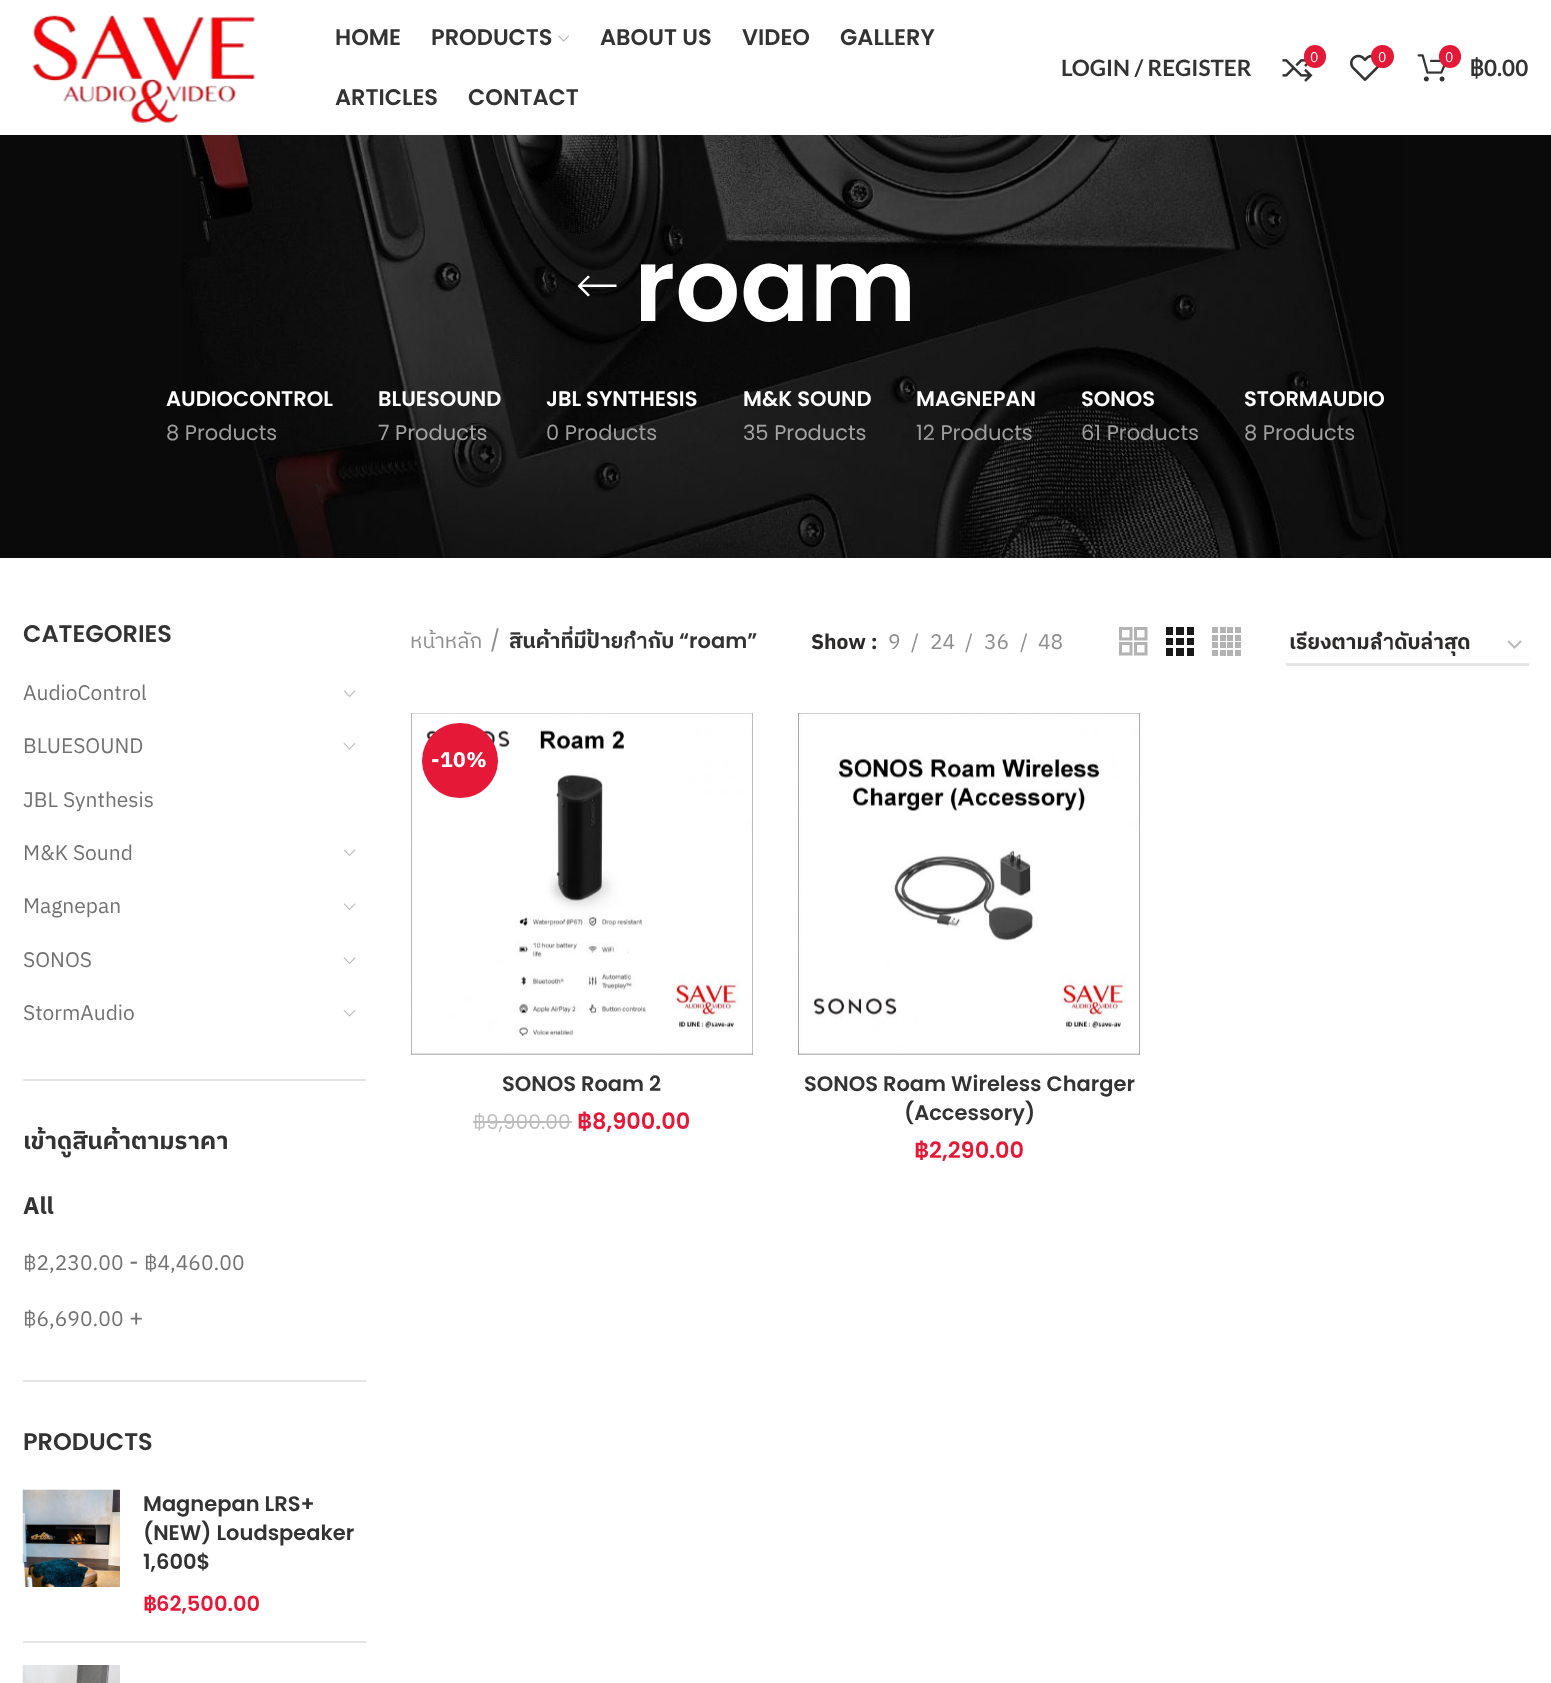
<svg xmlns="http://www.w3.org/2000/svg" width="1551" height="1683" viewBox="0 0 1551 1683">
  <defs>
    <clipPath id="clip1"><rect x="1289" y="629" width="210" height="27"/></clipPath>
  </defs>
  <rect width="100%" height="100%" fill="rgb(255,255,255)"/>
  <image x="32" y="15" width="224" height="108" href="pic1.png"/>
  <g font-family="Poppins" font-size="22.5" font-weight="600" fill="rgb(51,51,51)">
    <text x="335" y="45">HOME</text>
    <text x="431" y="45">PRODUCTS</text>
  </g>
  <image x="558" y="35" width="11" height="7" href="pic2.png"/>
  <g font-family="Poppins" font-size="22.5" font-weight="600" fill="rgb(51,51,51)">
    <text x="600" y="45">ABOUT US</text>
    <text x="742" y="45">VIDEO</text>
    <text x="840" y="45">GALLERY</text>
    <text x="335" y="105">ARTICLES</text>
    <text x="468" y="105">CONTACT</text>
  </g>
  <text x="1061" y="76" font-family="Lato" font-size="22.5" font-weight="bold" fill="rgb(51,51,51)">LOGIN / REGISTER</text>
  <image x="1282" y="54" width="31" height="28" href="pic3.png"/>
  <rect x="1304" y="45" width="22" height="23" rx="11" fill="rgb(229,25,55)"/>
  <text x="1310" y="62" font-family="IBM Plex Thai" font-size="14" fill="rgb(255,255,255)">0</text>
  <image x="1350" y="54" width="29" height="27" href="pic4.png"/>
  <circle cx="1382.5" cy="56.5" r="11.5" fill="rgb(229,25,55)"/>
  <text x="1378" y="62" font-family="IBM Plex Thai" font-size="14" fill="rgb(255,255,255)">0</text>
  <image x="1417" y="54" width="29" height="28" href="pic5.png"/>
  <rect x="1439" y="45" width="22" height="23" rx="11" fill="rgb(229,25,55)"/>
  <text x="1445" y="62" font-family="IBM Plex Thai" font-size="14" fill="rgb(255,255,255)">0</text>
  <text x="1469" y="76" font-family="'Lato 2'" font-size="22.5" font-weight="bold" fill="rgb(51,51,51)">฿</text>
  <text x="1484" y="76" font-family="Lato" font-size="22.5" font-weight="bold" fill="rgb(51,51,51)">0.00</text>
  <rect x="0" y="135" width="1551" height="423" fill="rgb(10,10,10)"/>
  <image x="182" y="135" width="1221" height="423" href="pic6.png"/>
  <path d="M616.5 284.5V287H582L590 295L588 296.5L577.5 286L588 275.5L590 277L582 284.5Z" fill="rgb(255,255,255)"/>
  <text x="634" y="321" font-family="Poppins" font-size="102" font-weight="600" fill="rgb(255,255,255)">roam</text>
  <text x="166" y="406" font-family="Poppins" font-size="21" font-weight="600" fill="rgb(255,255,255)">AUDIOCONTROL</text>
  <text x="166" y="440" font-family="Poppins" font-size="21" fill="rgb(157,157,157)">8 Products</text>
  <text x="378" y="406" font-family="Poppins" font-size="21" font-weight="600" fill="rgb(255,255,255)">BLUESOUND</text>
  <text x="378" y="440" font-family="Poppins" font-size="21" fill="rgb(163,163,163)">7 Products</text>
  <text x="546" y="406" font-family="Poppins" font-size="21" font-weight="600" fill="rgb(255,255,255)">JBL SYNTHESIS</text>
  <text x="546" y="440" font-family="Poppins" font-size="21" fill="rgb(157,157,157)">0 Products</text>
  <text x="743" y="406" font-family="Poppins" font-size="21" font-weight="600" fill="rgb(255,255,255)">M&amp;K SOUND</text>
  <text x="743" y="440" font-family="Poppins" font-size="21" fill="rgb(163,163,163)">35 Products</text>
  <text x="916" y="406" font-family="Poppins" font-size="21" font-weight="600" fill="rgb(255,255,255)">MAGNEPAN</text>
  <text x="916" y="440" font-family="Poppins" font-size="21" fill="rgb(157,157,157)">12 Products</text>
  <text x="1081" y="406" font-family="Poppins" font-size="21" font-weight="600" fill="rgb(255,255,255)">SONOS</text>
  <text x="1081" y="440" font-family="Poppins" font-size="21" fill="rgb(157,157,157)">61 Products</text>
  <text x="1244" y="406" font-family="Poppins" font-size="21" font-weight="600" fill="rgb(255,255,255)">STORMAUDIO</text>
  <text x="1244" y="440" font-family="Poppins" font-size="21" fill="rgb(157,157,157)">8 Products</text>
  <rect x="23" y="1079" width="343" height="2" fill="rgb(228,228,228)"/>
  <text x="23" y="642" font-family="Poppins" font-size="24" font-weight="600" fill="rgb(51,51,51)">CATEGORIES</text>
  <text x="23" y="700" font-family="IBM Plex Thai" font-size="21" fill="rgb(114,114,114)">AudioControl</text>
  <image x="343" y="690" width="13" height="7" href="pic7.png"/>
  <text x="23" y="753" font-family="IBM Plex Thai" font-size="21" fill="rgb(114,114,114)">BLUESOUND</text>
  <image x="343" y="743" width="13" height="7" href="pic8.png"/>
  <g font-family="IBM Plex Thai" font-size="21" fill="rgb(114,114,114)">
    <text x="23" y="807">JBL Synthesis</text>
    <text x="23" y="860">M&amp;K Sound</text>
  </g>
  <image x="343" y="849" width="13" height="7" href="pic7.png"/>
  <text x="23" y="913" font-family="IBM Plex Thai" font-size="21" fill="rgb(114,114,114)">Magnepan</text>
  <image x="343" y="903" width="13" height="7" href="pic7.png"/>
  <text x="23" y="967" font-family="IBM Plex Thai" font-size="21" fill="rgb(114,114,114)">SONOS</text>
  <image x="343" y="957" width="13" height="7" href="pic7.png"/>
  <text x="23" y="1020" font-family="IBM Plex Thai" font-size="21" fill="rgb(114,114,114)">StormAudio</text>
  <image x="343" y="1010" width="13" height="7" href="pic8.png"/>
  <rect x="23" y="1380" width="343" height="2" fill="rgb(228,228,228)"/>
  <g font-family="IBM Plex Thai" font-size="24" font-weight="bold" fill="rgb(51,51,51)">
    <text x="23" y="1149">เข้าดูสินค้าตามราคา</text>
    <text x="23" y="1214">All</text>
  </g>
  <text x="23" y="1270" font-family="IBM Plex Thai" font-size="21" fill="rgb(114,114,114)">฿2,230.00</text>
  <text x="129" y="1270" font-family="IBM Plex Thai" font-size="24" fill="rgb(114,114,114)">-</text>
  <g font-family="IBM Plex Thai" font-size="21" fill="rgb(114,114,114)">
    <text x="144" y="1270">฿4,460.00</text>
    <text x="23" y="1326">฿6,690.00</text>
  </g>
  <text x="129" y="1326" font-family="IBM Plex Thai" font-size="24" fill="rgb(114,114,114)">+</text>
  <text x="23" y="1450" font-family="Poppins" font-size="24" font-weight="600" fill="rgb(51,51,51)">PRODUCTS</text>
  <rect x="23" y="1641" width="343" height="2" fill="rgb(228,228,228)"/>
  <image x="22" y="1489" width="98" height="98" href="pic9.png"/>
  <g font-family="Poppins" font-size="21" font-weight="600" fill="rgb(51,51,51)">
    <text>
      <tspan x="143" y="1511">Magnepan LRS+</tspan>
      <tspan x="143" y="1540">(NEW) Loudspeaker</tspan>
      <tspan x="143" y="1569">1,600$</tspan>
    </text>
  </g>
  <text x="143" y="1611" font-family="IBM Plex Thai" font-size="21" font-weight="bold" fill="rgb(229,25,55)">฿</text>
  <text x="156" y="1611" font-family="Poppins" font-size="21" font-weight="600" fill="rgb(229,25,55)">62,500.00</text>
  <image x="22" y="1665" width="98" height="18" href="pic10.png"/>
  <text x="410" y="648" font-family="IBM Plex Thai" font-size="21" fill="rgb(142,142,142)">หน้าหลัก</text>
  <text x="490" y="648" font-family="Poppins" font-size="21" fill="rgb(142,142,142)">/</text>
  <text x="509" y="648" font-family="IBM Plex Thai" font-size="21" font-weight="bold" fill="rgb(51,51,51)">สินค้าที่มีป้ายกำกับ</text>
  <text x="679" y="648" font-family="Poppins" font-size="21" font-weight="600" fill="rgb(51,51,51)">“roam”</text>
  <text x="811" y="649" font-family="IBM Plex Thai" font-size="21" font-weight="bold" fill="rgb(45,42,42)">Show :</text>
  <g font-family="IBM Plex Thai" font-size="21" fill="rgb(142,142,142)">
    <text x="888" y="649">9</text>
    <text x="911" y="649">/</text>
    <text x="930" y="649">24</text>
    <text x="965" y="649">/</text>
    <text x="984" y="649">36</text>
    <text x="1020" y="649">/</text>
    <text x="1038" y="649">48</text>
  </g>
  <image x="1119" y="627" width="29" height="29" href="pic11.png"/>
  <image x="1166" y="627" width="28" height="29" href="pic12.png"/>
  <image x="1212" y="627" width="29" height="29" href="pic13.png"/>
  <path d="M1508 641L1514.5 647.5L1521 641" fill="none" stroke="rgb(187,187,187)" stroke-width="2.2"/>
  <rect x="1286" y="663" width="243" height="3" fill="rgb(230,230,230)"/>
  <g clip-path="url(#clip1)">
    <text x="1289" y="649" font-family="IBM Plex Thai" font-size="21" font-weight="bold" fill="rgb(45,42,42)">เรียงตามลำดับล่าสุด</text>
  </g>
  <image x="411" y="713" width="342" height="342" href="pic14.png"/>
  <rect x="422" y="723" width="76" height="75" rx="37.5" fill="rgb(229,25,55)"/>
  <text x="431" y="767" font-family="IBM Plex Thai" font-size="21" font-weight="bold" letter-spacing="0.5" fill="rgb(255,255,255)">-10%</text>
  <text x="502" y="1091" font-family="Poppins" font-size="21" font-weight="600" fill="rgb(51,51,51)">SONOS Roam 2</text>
  <text x="473" y="1129" font-family="IBM Plex Thai" font-size="20.25" fill="rgb(189,189,189)">฿</text>
  <rect x="473" y="1121" width="13" height="2" fill="rgb(189,189,189)"/>
  <rect x="486" y="1121" width="86" height="2" fill="rgb(189,189,189)"/>
  <text x="486" y="1129" font-family="Poppins" font-size="20.25" fill="rgb(189,189,189)">9,900.00</text>
  <text x="577" y="1129" font-family="IBM Plex Thai" font-size="22.5" font-weight="bold" fill="rgb(229,25,55)">฿</text>
  <text x="592" y="1129" font-family="Poppins" font-size="22.5" font-weight="600" fill="rgb(229,25,55)">8,900.00</text>
  <image x="798" y="713" width="342" height="342" href="pic15.png"/>
  <g font-family="Poppins" font-size="21" font-weight="600" fill="rgb(51,51,51)">
    <text x="804" y="1091">SONOS Roam Wireless Charger</text>
    <text x="904" y="1120">(Accessory)</text>
  </g>
  <text x="914" y="1158" font-family="IBM Plex Thai" font-size="22.5" font-weight="bold" fill="rgb(229,25,55)">฿</text>
  <text x="929" y="1158" font-family="Poppins" font-size="22.5" font-weight="600" fill="rgb(229,25,55)">2,290.00</text>
</svg>
